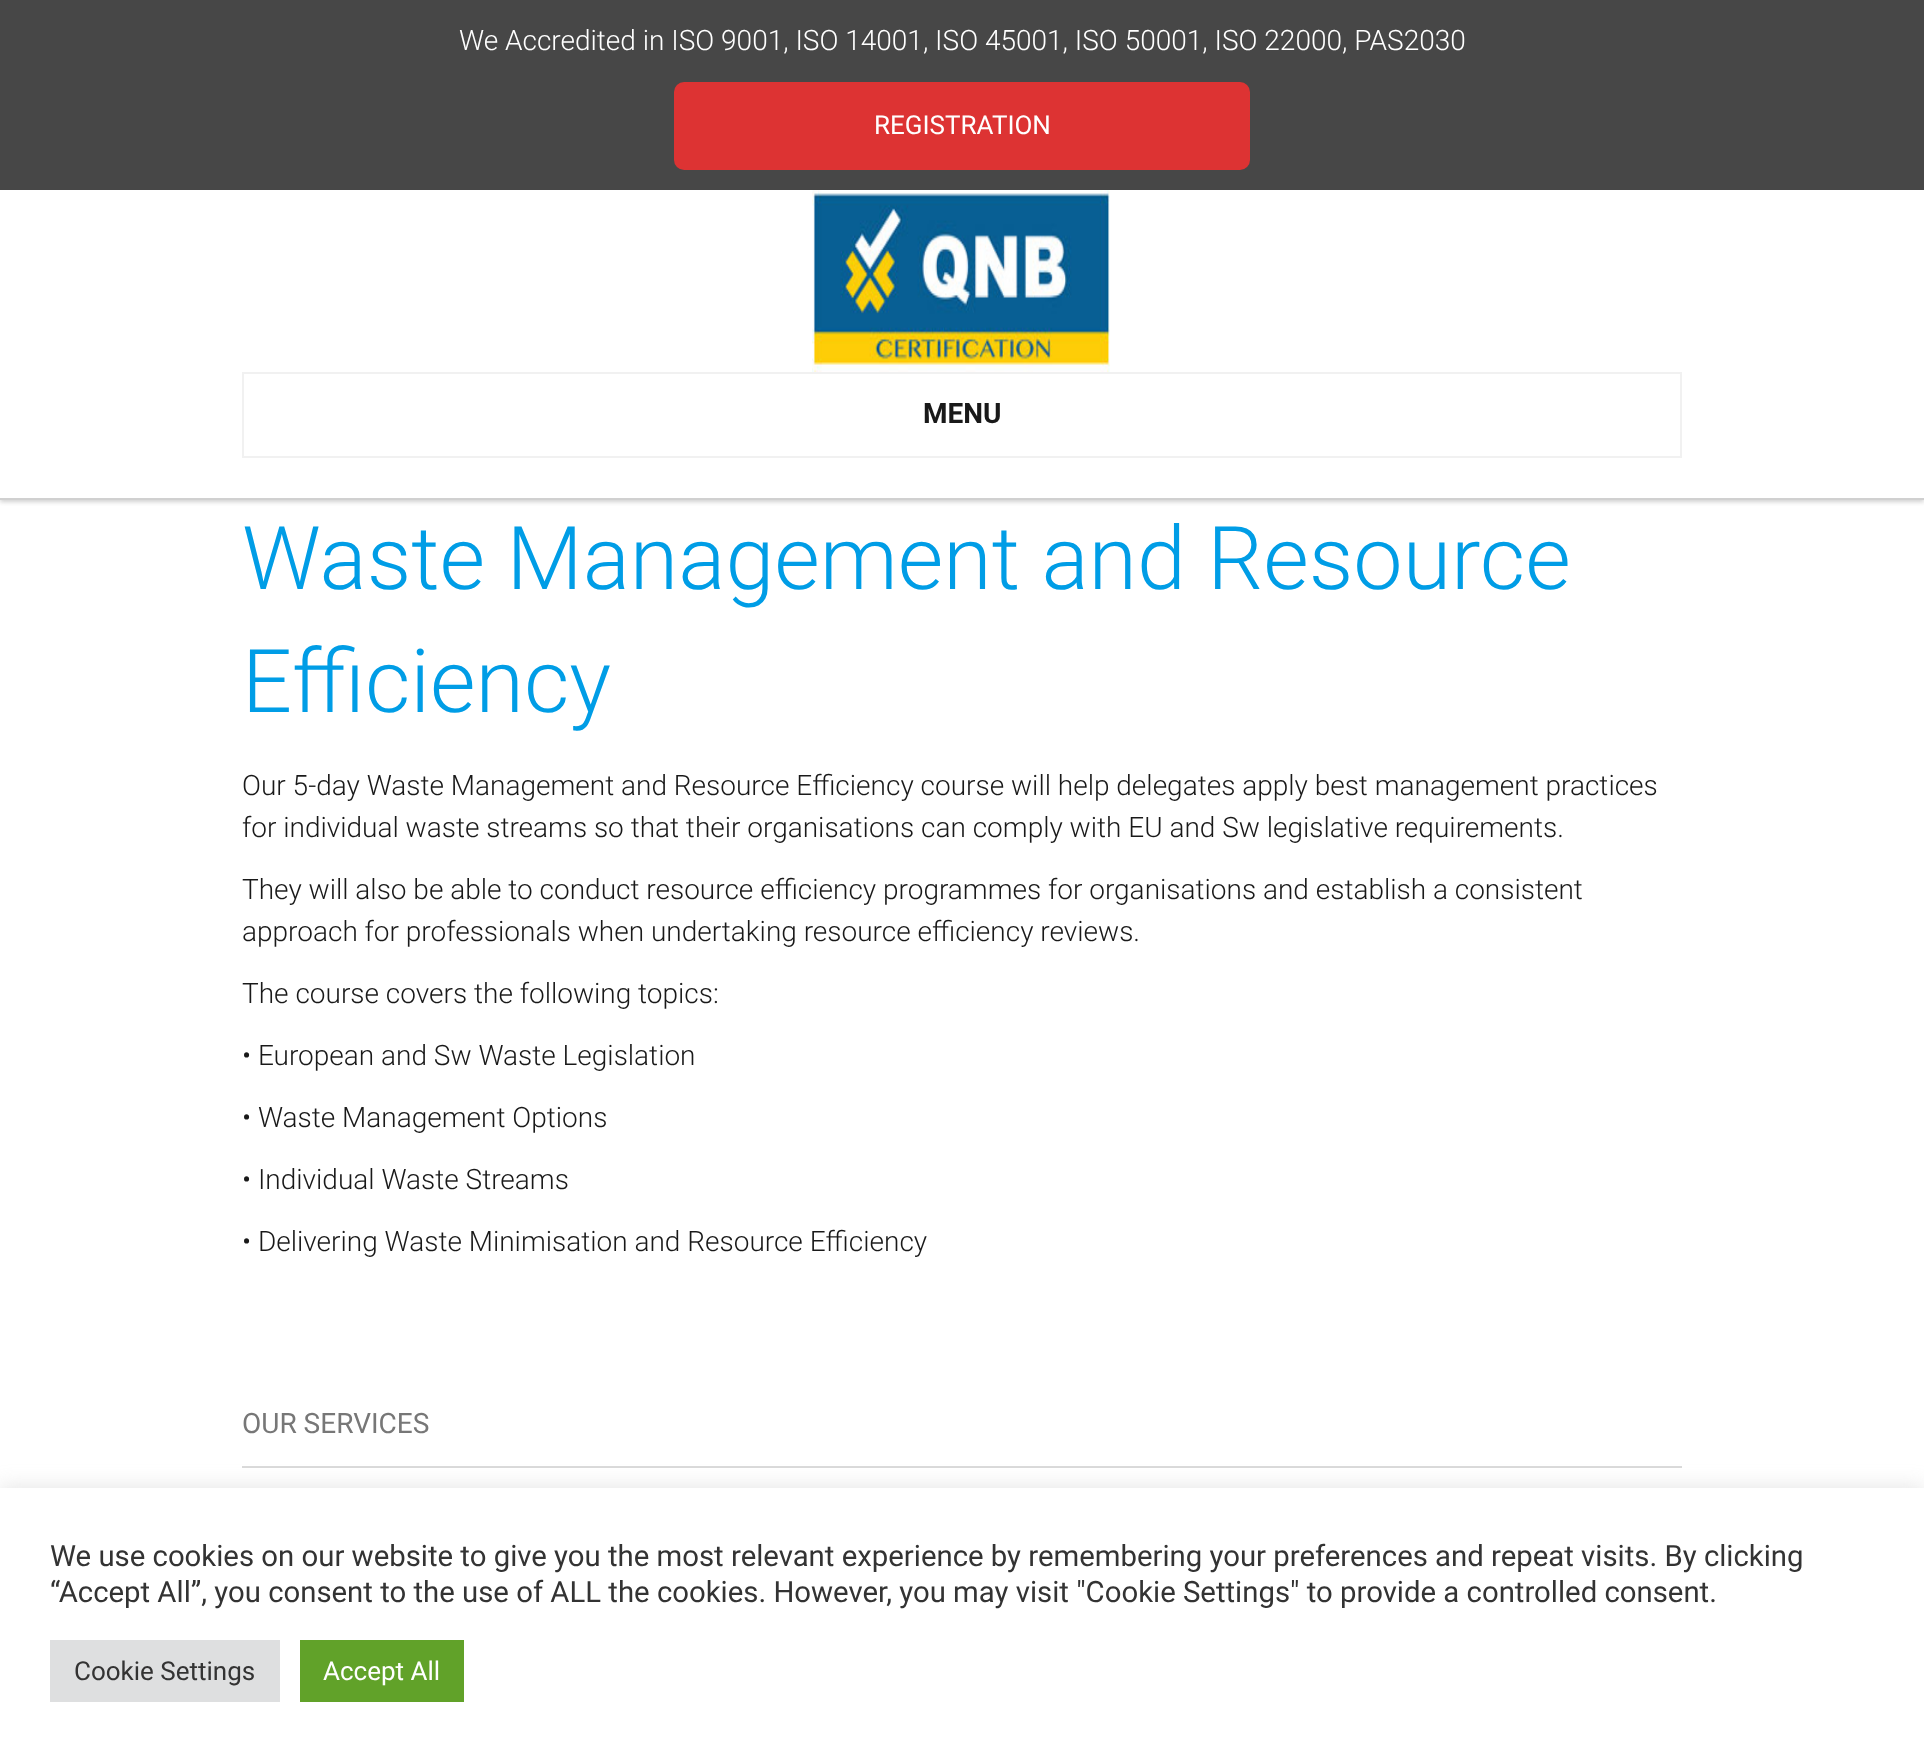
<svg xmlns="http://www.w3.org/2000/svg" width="1924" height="1762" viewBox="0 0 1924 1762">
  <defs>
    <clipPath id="clip1"><rect x="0" y="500" width="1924" height="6"/></clipPath>
  </defs>
  <rect width="100%" height="100%" fill="rgb(255,255,255)"/>
  <g clip-path="url(#clip1)">
    <rect x="0" y="2" width="1924" height="500" fill="rgb(208,208,208)" filter="blur(2px)"/>
  </g>
  <rect x="0" y="498" width="1924" height="2" fill="rgb(208,208,208)"/>
  <rect x="0" y="0" width="1924" height="190" fill="rgb(71,71,71)"/>
  <text x="459" y="50" font-family="Roboto" font-size="28" font-weight="300" fill="rgb(255,255,255)">We Accredited in ISO 9001, ISO 14001, ISO 45001, ISO 50001, ISO 22000, PAS2030</text>
  <rect x="674" y="82" width="576" height="88" rx="10" fill="rgb(221,51,51)"/>
  <text x="874" y="134" font-family="Roboto" font-size="26" fill="rgb(255,255,255)">REGISTRATION</text>
  <image x="812" y="190" width="298" height="182" href="pic1.png"/>
  <rect x="243" y="373" width="1438" height="84" fill="none" stroke="rgb(241,241,241)" stroke-width="2"/>
  <text x="923" y="423" font-family="Roboto" font-size="28" font-weight="bold" fill="rgb(25,25,25)">MENU</text>
  <g font-family="Roboto" font-size="88" font-weight="300" fill="rgb(0,157,230)">
    <text>
      <tspan x="242" y="589">Waste Management and Resource</tspan>
      <tspan x="242" y="712">Efficiency</tspan>
    </text>
  </g>
  <g font-family="Roboto" font-size="28" font-weight="300" fill="rgb(25,25,25)">
    <text>
      <tspan x="242" y="795">Our 5-day Waste Management and Resource Efficiency course will help delegates apply best management practices</tspan>
      <tspan x="242" y="837">for individual waste streams so that their organisations can comply with EU and Sw legislative requirements.</tspan>
    </text>
    <text>
      <tspan x="242" y="899">They will also be able to conduct resource efficiency programmes for organisations and establish a consistent</tspan>
      <tspan x="242" y="941">approach for professionals when undertaking resource efficiency reviews.</tspan>
    </text>
    <text x="242" y="1003">The course covers the following topics:</text>
    <text x="242" y="1065">• European and Sw Waste Legislation</text>
    <text x="242" y="1127">• Waste Management Options</text>
    <text x="242" y="1189">• Individual Waste Streams</text>
    <text x="242" y="1251">• Delivering Waste Minimisation and Resource Efficiency</text>
  </g>
  <rect x="242" y="1466" width="1440" height="2" fill="rgb(218,218,218)"/>
  <text x="242" y="1433" font-family="Roboto" font-size="28" fill="rgb(119,119,119)">OUR SERVICES</text>
  <rect x="0" y="1486" width="1924" height="274" fill="rgba(172,171,171,0.3)" filter="blur(10px)"/>
  <rect x="0" y="1488" width="1924" height="274" fill="rgb(255,255,255)"/>
  <g font-family="Roboto" font-size="29.33" fill="rgb(51,51,51)">
    <text>
      <tspan x="50" y="1566">We use cookies on our website to give you the most relevant experience by remembering your preferences and repeat visits. By clicking</tspan>
      <tspan x="50" y="1602">“Accept All”, you consent to the use of ALL the cookies. However, you may visit "Cookie Settings" to provide a controlled consent.</tspan>
    </text>
  </g>
  <rect x="50" y="1640" width="230" height="62" fill="rgb(222,223,224)"/>
  <text x="74" y="1680" font-family="Roboto" font-size="26" fill="rgb(51,51,51)">Cookie Settings</text>
  <rect x="300" y="1640" width="164" height="62" fill="rgb(97,162,41)"/>
  <text x="323" y="1680" font-family="Roboto" font-size="26" fill="rgb(255,255,255)">Accept All</text>
</svg>
